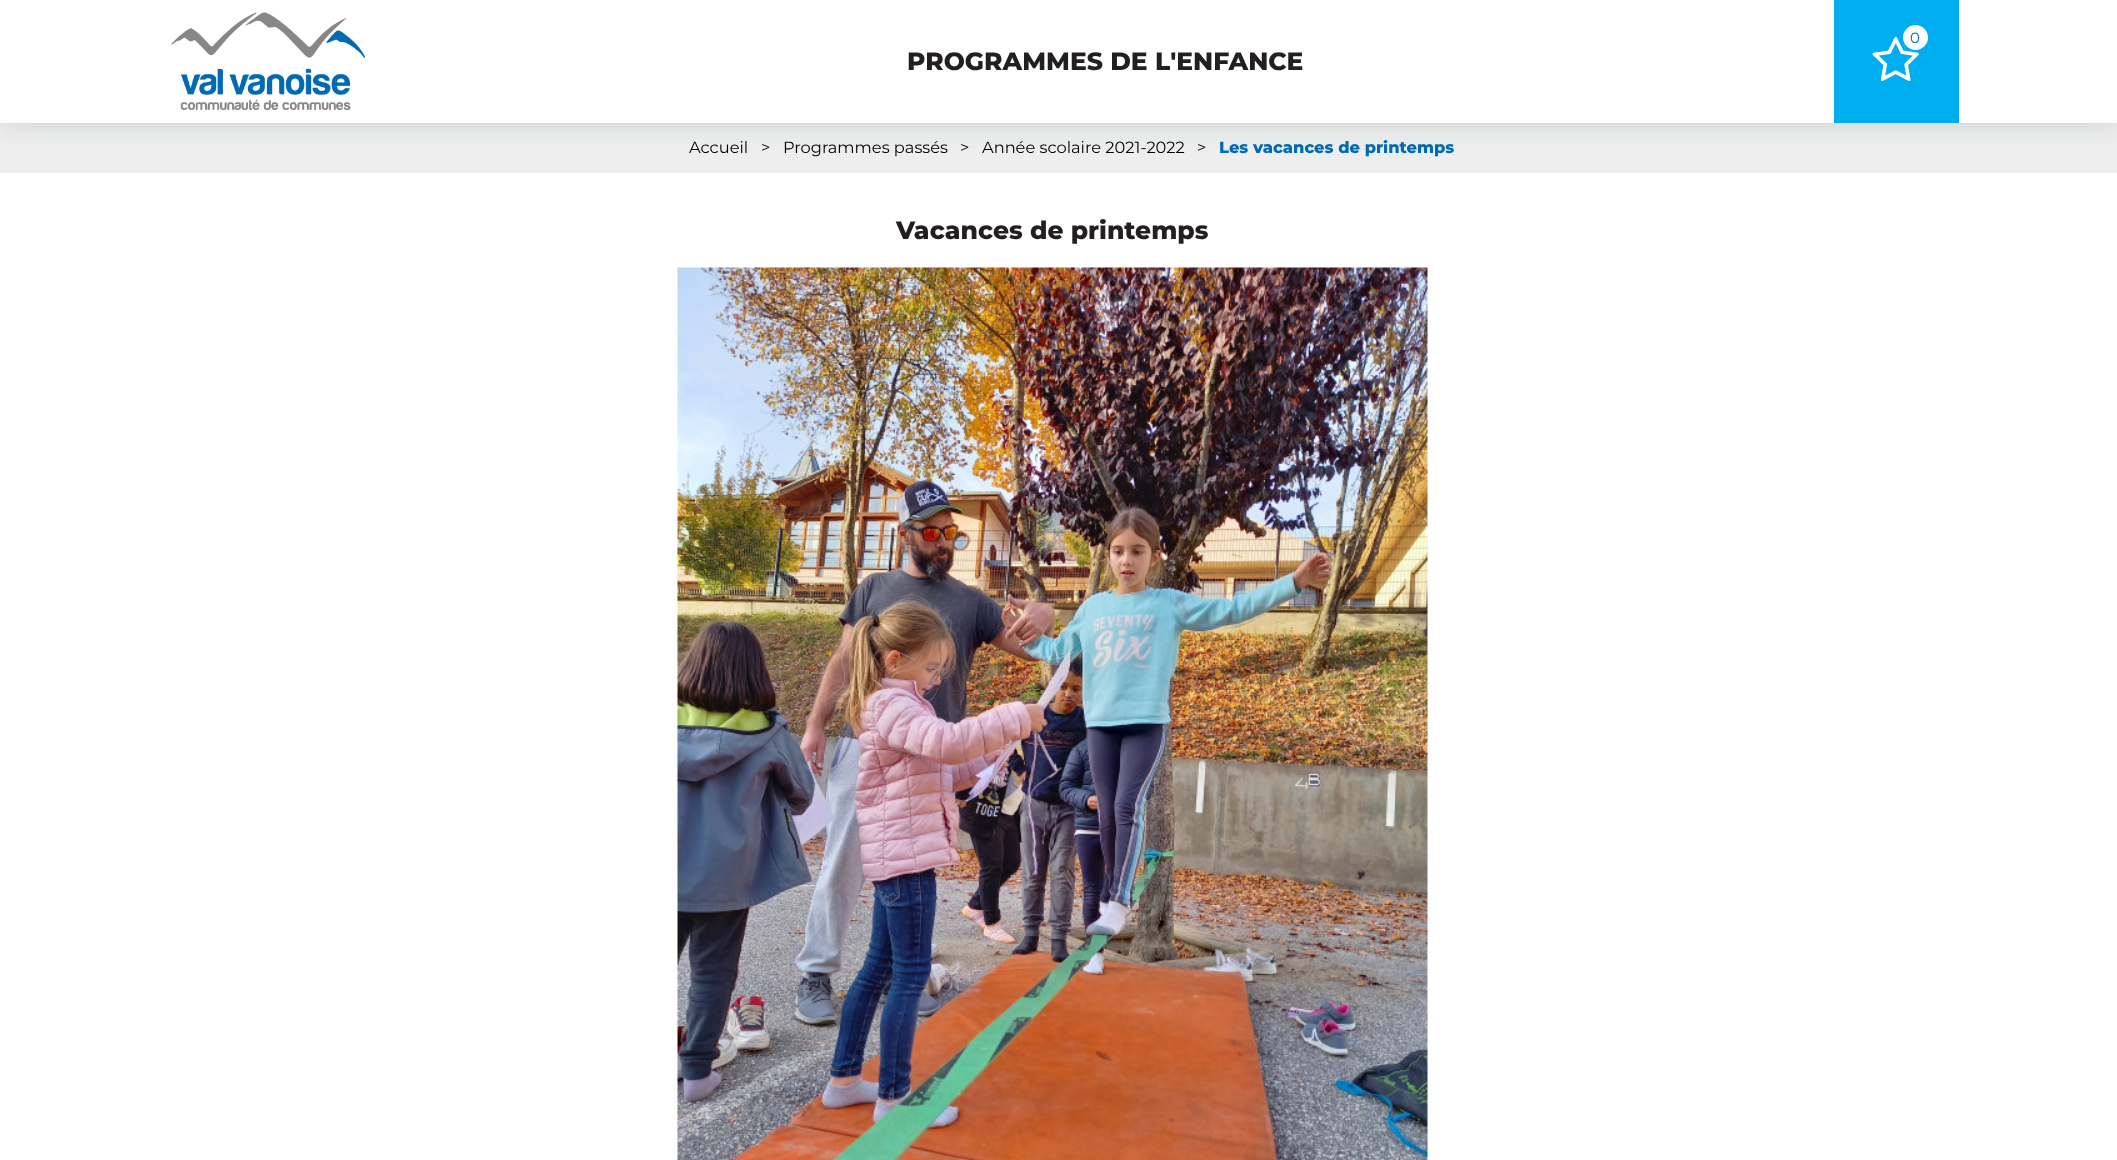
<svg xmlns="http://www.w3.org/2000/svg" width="2117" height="1160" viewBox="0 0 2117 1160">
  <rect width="100%" height="100%" fill="rgb(255,255,255)"/>
  <rect x="0" y="123" width="2117" height="50" fill="rgb(238,238,238)"/>
  <rect x="0" y="0" width="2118" height="123" fill="rgba(152,164,172,0.44)" filter="blur(13px)"/>
  <rect x="0" y="0" width="2117" height="123" fill="rgb(255,255,255)"/>
  <image x="171" y="12" width="194" height="98" href="pic1.png"/>
  <rect x="1834" y="0" width="125" height="123" fill="rgb(0,173,239)"/>
  <image x="1872" y="36" width="47" height="46" href="pic2.png"/>
  <circle cx="1915.5" cy="37.5" r="12.5" fill="rgb(255,255,255)"/>
  <text x="1910" y="43" font-family="Montserrat" font-size="15" fill="rgb(0,107,179)">0</text>
  <text x="907" y="70" font-family="Montserrat" font-size="25" font-weight="800" fill="rgb(35,31,32)">PROGRAMMES DE L'ENFANCE</text>
  <g font-family="Montserrat" font-size="16.25" fill="rgb(0,0,0)">
    <text x="689" y="153">Accueil</text>
    <text x="761" y="153">&gt;</text>
    <text x="783" y="153">Programmes passés</text>
    <text x="960" y="153">&gt;</text>
    <text x="982" y="153">Année scolaire 2021-2022</text>
    <text x="1197" y="153">&gt;</text>
  </g>
  <text x="1219" y="153" font-family="Montserrat" font-size="16.25" font-weight="800" fill="rgb(0,107,179)">Les vacances de printemps</text>
  <text x="896" y="239" font-family="Montserrat" font-size="25" font-weight="800" fill="rgb(35,31,32)">Vacances de printemps</text>
  <image x="677" y="267" width="751" height="893" href="pic3.png"/>
</svg>
